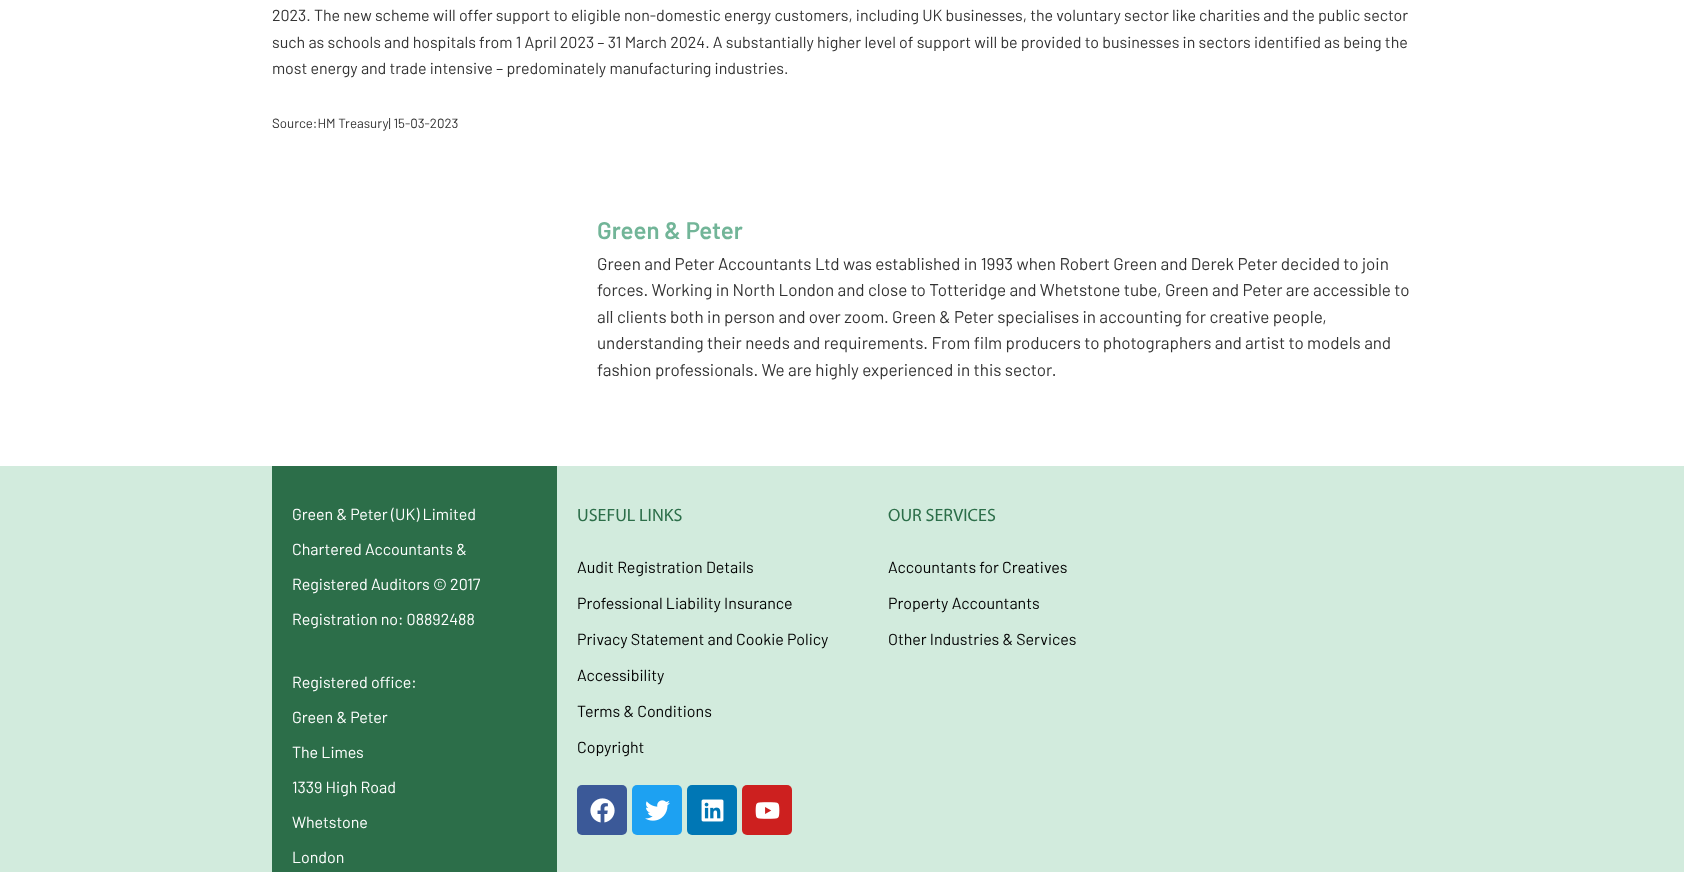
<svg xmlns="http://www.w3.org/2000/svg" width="1684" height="872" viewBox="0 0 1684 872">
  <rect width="100%" height="100%" fill="rgb(255,255,255)"/>
  <g font-family="Barlow" font-size="16" fill="rgb(51,51,51)">
    <text>
      <tspan x="272" y="21">2023. The new scheme will offer support to eligible non-domestic energy customers, including UK businesses, the voluntary sector like charities and the public sector</tspan>
      <tspan x="272" y="48">such as schools and hospitals from 1 April 2023 – 31 March 2024. A substantially higher level of support will be provided to businesses in sectors identified as being the</tspan>
      <tspan x="272" y="74">most energy and trade intensive – predominately manufacturing industries.</tspan>
    </text>
  </g>
  <text x="272" y="128" font-family="Barlow" font-size="13.3" fill="rgb(51,51,51)">Source:HM Treasury| 15-03-2023</text>
  <text x="597" y="239" font-family="Barlow" font-size="24" font-weight="600" fill="rgb(114,181,152)">Green &amp; Peter</text>
  <g font-family="Barlow" font-size="17" fill="rgb(51,51,51)">
    <text>
      <tspan x="597" y="270">Green and Peter Accountants Ltd was established in 1993 when Robert Green and Derek Peter decided to join</tspan>
      <tspan x="597" y="296">forces. Working in North London and close to Totteridge and Whetstone tube, Green and Peter are accessible to</tspan>
      <tspan x="597" y="323">all clients both in person and over zoom. Green &amp; Peter specialises in accounting for creative people,</tspan>
      <tspan x="597" y="349">understanding their needs and requirements. From film producers to photographers and artist to models and</tspan>
      <tspan x="597" y="376">fashion professionals. We are highly experienced in this sector.</tspan>
    </text>
  </g>
  <rect x="0" y="466" width="1684" height="406" fill="rgb(210,235,221)"/>
  <rect x="272" y="466" width="285" height="406" fill="rgb(44,110,73)"/>
  <g font-family="Barlow" font-size="16" fill="rgb(255,255,255)">
    <text x="292" y="520">Green &amp; Peter (UK) Limited</text>
    <text x="292" y="555">Chartered Accountants &amp;</text>
    <text x="292" y="590">Registered Auditors © 2017</text>
    <text x="292" y="625">Registration no: 08892488</text>
    <text x="292" y="688">Registered office:</text>
    <text x="292" y="723">Green &amp; Peter</text>
    <text x="292" y="758">The Limes</text>
    <text x="292" y="793">1339 High Road</text>
    <text x="292" y="828">Whetstone</text>
    <text x="292" y="863">London</text>
  </g>
  <text x="577" y="521" font-family="Myriad" font-size="18" fill="rgb(44,110,73)">USEFUL LINKS</text>
  <g font-family="Barlow" font-size="16" fill="rgb(0,0,0)">
    <text x="577" y="573">Audit Registration Details</text>
    <text x="577" y="609">Professional Liability Insurance</text>
    <text x="577" y="645">Privacy Statement and Cookie Policy</text>
    <text x="577" y="681">Accessibility</text>
    <text x="577" y="717">Terms &amp; Conditions</text>
    <text x="577" y="753">Copyright</text>
  </g>
  <rect x="577" y="785" width="50" height="50" rx="5" fill="rgb(59,89,152)"/>
  <image x="590" y="798" width="25" height="25" href="pic1.png"/>
  <rect x="632" y="785" width="50" height="50" rx="5" fill="rgb(29,161,242)"/>
  <image x="645" y="800" width="25" height="21" href="pic2.png"/>
  <rect x="687" y="785" width="50" height="50" rx="5" fill="rgb(0,119,181)"/>
  <image x="701" y="799" width="23" height="23" href="pic3.png"/>
  <rect x="742" y="785" width="50" height="50" rx="5" fill="rgb(205,32,31)"/>
  <image x="755" y="802" width="25" height="17" href="pic4.png"/>
  <text x="888" y="521" font-family="Myriad" font-size="18" fill="rgb(44,110,73)">OUR SERVICES</text>
  <g font-family="Barlow" font-size="16" fill="rgb(0,0,0)">
    <text x="888" y="573">Accountants for Creatives</text>
    <text x="888" y="609">Property Accountants</text>
    <text x="888" y="645">Other Industries &amp; Services</text>
  </g>
</svg>
